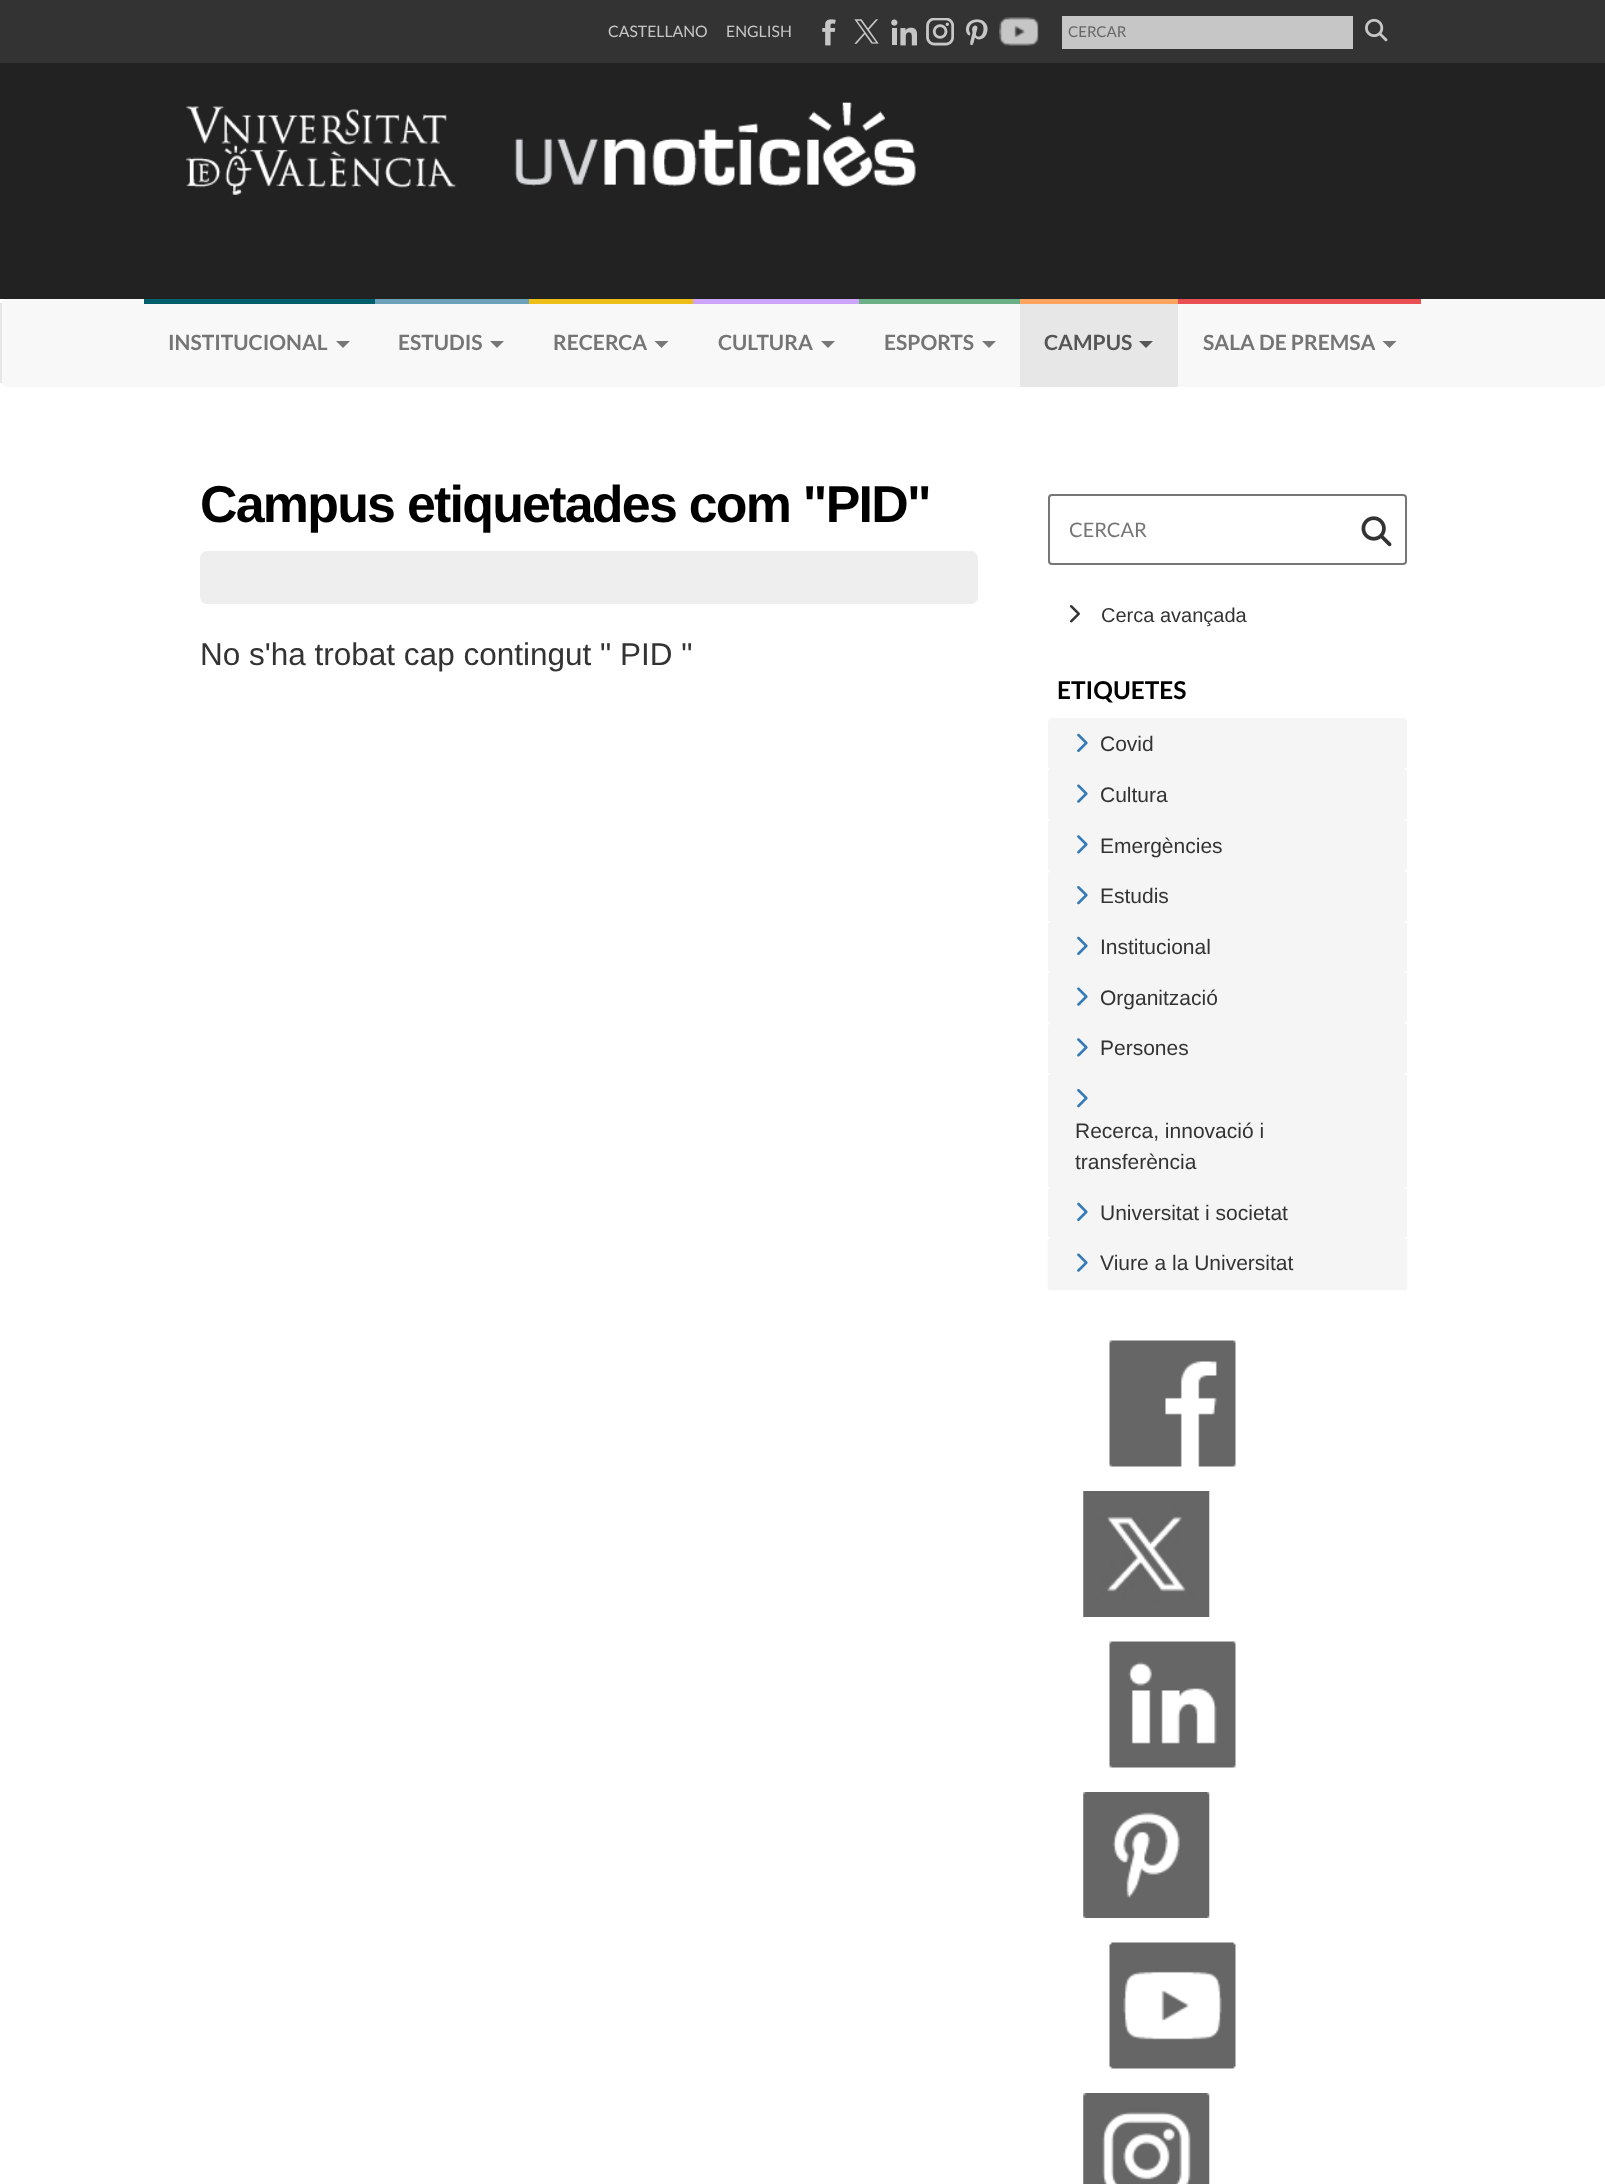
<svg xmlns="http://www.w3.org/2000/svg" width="1605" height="2184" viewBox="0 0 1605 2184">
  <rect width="100%" height="100%" fill="rgb(255,255,255)"/>
  <rect x="0" y="0" width="1605" height="63" fill="rgb(51,51,51)"/>
  <g font-family="Lato" font-size="15.75" fill="rgb(199,198,198)">
    <text x="608" y="37">CASTELLANO</text>
    <text x="726" y="37">ENGLISH</text>
  </g>
  <image x="822" y="19" width="14" height="27" href="pic1.png"/>
  <image x="854" y="19" width="25" height="25" href="pic2.png"/>
  <image x="891" y="19" width="26" height="27" href="pic3.png"/>
  <image x="926" y="18" width="28" height="28" href="pic4.png"/>
  <image x="965" y="19" width="23" height="27" href="pic5.png"/>
  <image x="999" y="17" width="40" height="29" href="pic6.png"/>
  <rect x="1062" y="16" width="291" height="33" fill="rgb(199,198,198)"/>
  <text x="1068" y="37" font-family="Lato" font-size="15" fill="rgb(102,102,102)">CERCAR</text>
  <image x="1365" y="18" width="23" height="24" href="pic7.png"/>
  <rect x="0" y="63" width="1605" height="236" fill="rgb(34,34,34)"/>
  <image x="185" y="102" width="731" height="93" href="pic8.png"/>
  <rect x="0" y="299" width="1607" height="88" rx="7" fill="rgb(248,248,248)"/>
  <rect x="0" y="303" width="2" height="80" fill="rgb(231,231,231)"/>
  <rect x="144" y="299" width="231" height="5" fill="rgb(0,94,109)"/>
  <text x="168" y="350" font-family="Lato" font-size="21" font-weight="bold" fill="rgb(117,117,117)">INSTITUCIONAL</text>
  <path d="M336 341H350L343 348Z" fill="rgb(119,119,119)"/>
  <rect x="375" y="299" width="154" height="5" fill="rgb(108,162,185)"/>
  <text x="398" y="350" font-family="Lato" font-size="21" font-weight="bold" fill="rgb(117,117,117)">ESTUDIS</text>
  <path d="M490 341H504L497 348Z" fill="rgb(119,119,119)"/>
  <rect x="529" y="299" width="164" height="5" fill="rgb(237,190,23)"/>
  <text x="553" y="350" font-family="Lato" font-size="21" font-weight="bold" fill="rgb(117,117,117)">RECERCA</text>
  <path d="M654.5 341H668.5L661.5 348Z" fill="rgb(119,119,119)"/>
  <rect x="693" y="299" width="166" height="5" fill="rgb(205,164,251)"/>
  <text x="718" y="350" font-family="Lato" font-size="21" font-weight="bold" fill="rgb(117,117,117)">CULTURA</text>
  <path d="M821 341H835L828 348Z" fill="rgb(119,119,119)"/>
  <rect x="859" y="299" width="161" height="5" fill="rgb(107,175,135)"/>
  <text x="884" y="350" font-family="Lato" font-size="21" font-weight="bold" fill="rgb(117,117,117)">ESPORTS</text>
  <path d="M982 341H996L989 348Z" fill="rgb(119,119,119)"/>
  <rect x="1020" y="304" width="158" height="83" fill="rgb(231,231,231)"/>
  <rect x="1020" y="299" width="158" height="5" fill="rgb(255,165,96)"/>
  <text x="1044" y="350" font-family="Lato" font-size="21" font-weight="bold" fill="rgb(85,85,85)">CAMPUS</text>
  <path d="M1139 341H1153L1146 348Z" fill="rgb(85,85,85)"/>
  <rect x="1178" y="299" width="243" height="5" fill="rgb(234,79,84)"/>
  <text x="1203" y="350" font-family="Lato" font-size="21" font-weight="bold" fill="rgb(117,117,117)">SALA DE PREMSA</text>
  <path d="M1382.5 341H1396.5L1389.5 348Z" fill="rgb(119,119,119)"/>
  <text x="200" y="522" font-family="Liberation Sans" font-size="51.9" font-weight="bold" letter-spacing="-1.75" fill="rgb(0,0,0)">Campus etiquetades com "PID"</text>
  <rect x="200" y="551" width="778" height="53" rx="7" fill="rgb(238,238,238)"/>
  <text x="200" y="665" font-family="Liberation Sans" font-size="31.5" fill="rgb(51,51,51)">No s'ha trobat cap contingut " PID "</text>
  <rect x="1049" y="495" width="357" height="69" rx="3" fill="none" stroke="rgb(118,118,118)" stroke-width="2"/>
  <text x="1069" y="537" font-family="Lato" font-size="20" fill="rgb(117,117,117)">CERCAR</text>
  <image x="1361" y="516" width="31" height="31" href="pic9.png"/>
  <image x="1070" y="605" width="10" height="18" href="pic10.png"/>
  <text x="1101" y="622" font-family="Liberation Sans" font-size="20" fill="rgb(51,51,51)">Cerca avançada</text>
  <text x="1057" y="699" font-family="Lato" font-size="24.5" font-weight="bold" fill="rgb(0,0,0)">ETIQUETES</text>
  <path d="M1053 718H1402C1405 718 1407 720 1407 723V768H1048V723C1048 720 1050 718 1053 718Z" fill="rgb(245,245,245)"/>
  <image x="1077" y="733" width="11" height="19" href="pic11.png"/>
  <text x="1100" y="751" font-family="Liberation Sans" font-size="21" fill="rgb(51,51,51)">Covid</text>
  <path d="M1053 768H1402C1405 768 1407 770 1407 773V819H1048V773C1048 770 1050 768 1053 768Z" fill="rgb(245,245,245)"/>
  <image x="1077" y="784" width="11" height="19" href="pic12.png"/>
  <text x="1100" y="802" font-family="Liberation Sans" font-size="21" fill="rgb(51,51,51)">Cultura</text>
  <path d="M1053 819H1402C1405 819 1407 821 1407 824V870H1048V824C1048 821 1050 819 1053 819Z" fill="rgb(245,245,245)"/>
  <image x="1077" y="835" width="11" height="19" href="pic13.png"/>
  <text x="1100" y="853" font-family="Liberation Sans" font-size="21" fill="rgb(51,51,51)">Emergències</text>
  <path d="M1053 870H1402C1405 870 1407 872 1407 875V921H1048V875C1048 872 1050 870 1053 870Z" fill="rgb(245,245,245)"/>
  <image x="1077" y="885" width="11" height="20" href="pic14.png"/>
  <text x="1100" y="903" font-family="Liberation Sans" font-size="21" fill="rgb(51,51,51)">Estudis</text>
  <path d="M1053 921H1402C1405 921 1407 923 1407 926V971H1048V926C1048 923 1050 921 1053 921Z" fill="rgb(245,245,245)"/>
  <image x="1077" y="936" width="11" height="19" href="pic11.png"/>
  <text x="1100" y="954" font-family="Liberation Sans" font-size="21" fill="rgb(51,51,51)">Institucional</text>
  <path d="M1053 971H1402C1405 971 1407 973 1407 976V1022H1048V976C1048 973 1050 971 1053 971Z" fill="rgb(245,245,245)"/>
  <image x="1077" y="987" width="11" height="19" href="pic12.png"/>
  <text x="1100" y="1005" font-family="Liberation Sans" font-size="21" fill="rgb(51,51,51)">Organització</text>
  <path d="M1053 1022H1402C1405 1022 1407 1024 1407 1027V1073H1048V1027C1048 1024 1050 1022 1053 1022Z" fill="rgb(245,245,245)"/>
  <image x="1077" y="1038" width="11" height="19" href="pic13.png"/>
  <text x="1100" y="1055" font-family="Liberation Sans" font-size="21" fill="rgb(51,51,51)">Persones</text>
  <path d="M1053 1073H1402C1405 1073 1407 1075 1407 1078V1187H1048V1078C1048 1075 1050 1073 1053 1073Z" fill="rgb(245,245,245)"/>
  <image x="1077" y="1088" width="11" height="20" href="pic14.png"/>
  <g font-family="Liberation Sans" font-size="21" fill="rgb(51,51,51)">
    <text>
      <tspan x="1075" y="1138">Recerca, innovació i</tspan>
      <tspan x="1075" y="1169">transferència</tspan>
    </text>
  </g>
  <path d="M1053 1187H1402C1405 1187 1407 1189 1407 1192V1237H1048V1192C1048 1189 1050 1187 1053 1187Z" fill="rgb(245,245,245)"/>
  <image x="1077" y="1202" width="11" height="19" href="pic11.png"/>
  <text x="1100" y="1220" font-family="Liberation Sans" font-size="21" fill="rgb(51,51,51)">Universitat i societat</text>
  <rect x="1048" y="1239" width="359" height="51" fill="rgba(0,0,0,0.05)" filter="blur(1px)"/>
  <rect x="1048" y="1238" width="359" height="4" fill="rgb(255,255,255)"/>
  <path d="M1053 1237H1402C1405 1237 1407 1239 1407 1242V1288H1048V1242C1048 1239 1050 1237 1053 1237Z" fill="rgb(245,245,245)"/>
  <image x="1077" y="1253" width="11" height="19" href="pic12.png"/>
  <text x="1100" y="1270" font-family="Liberation Sans" font-size="21" fill="rgb(51,51,51)">Viure a la Universitat</text>
  <image x="1109" y="1340" width="127" height="127" href="pic15.png"/>
  <image x="1083" y="1491" width="127" height="126" href="pic16.png"/>
  <image x="1109" y="1641" width="127" height="127" href="pic17.png"/>
  <image x="1083" y="1792" width="127" height="126" href="pic18.png"/>
  <image x="1109" y="1942" width="127" height="127" href="pic19.png"/>
  <image x="1083" y="2093" width="127" height="91" href="pic20.png"/>
</svg>
